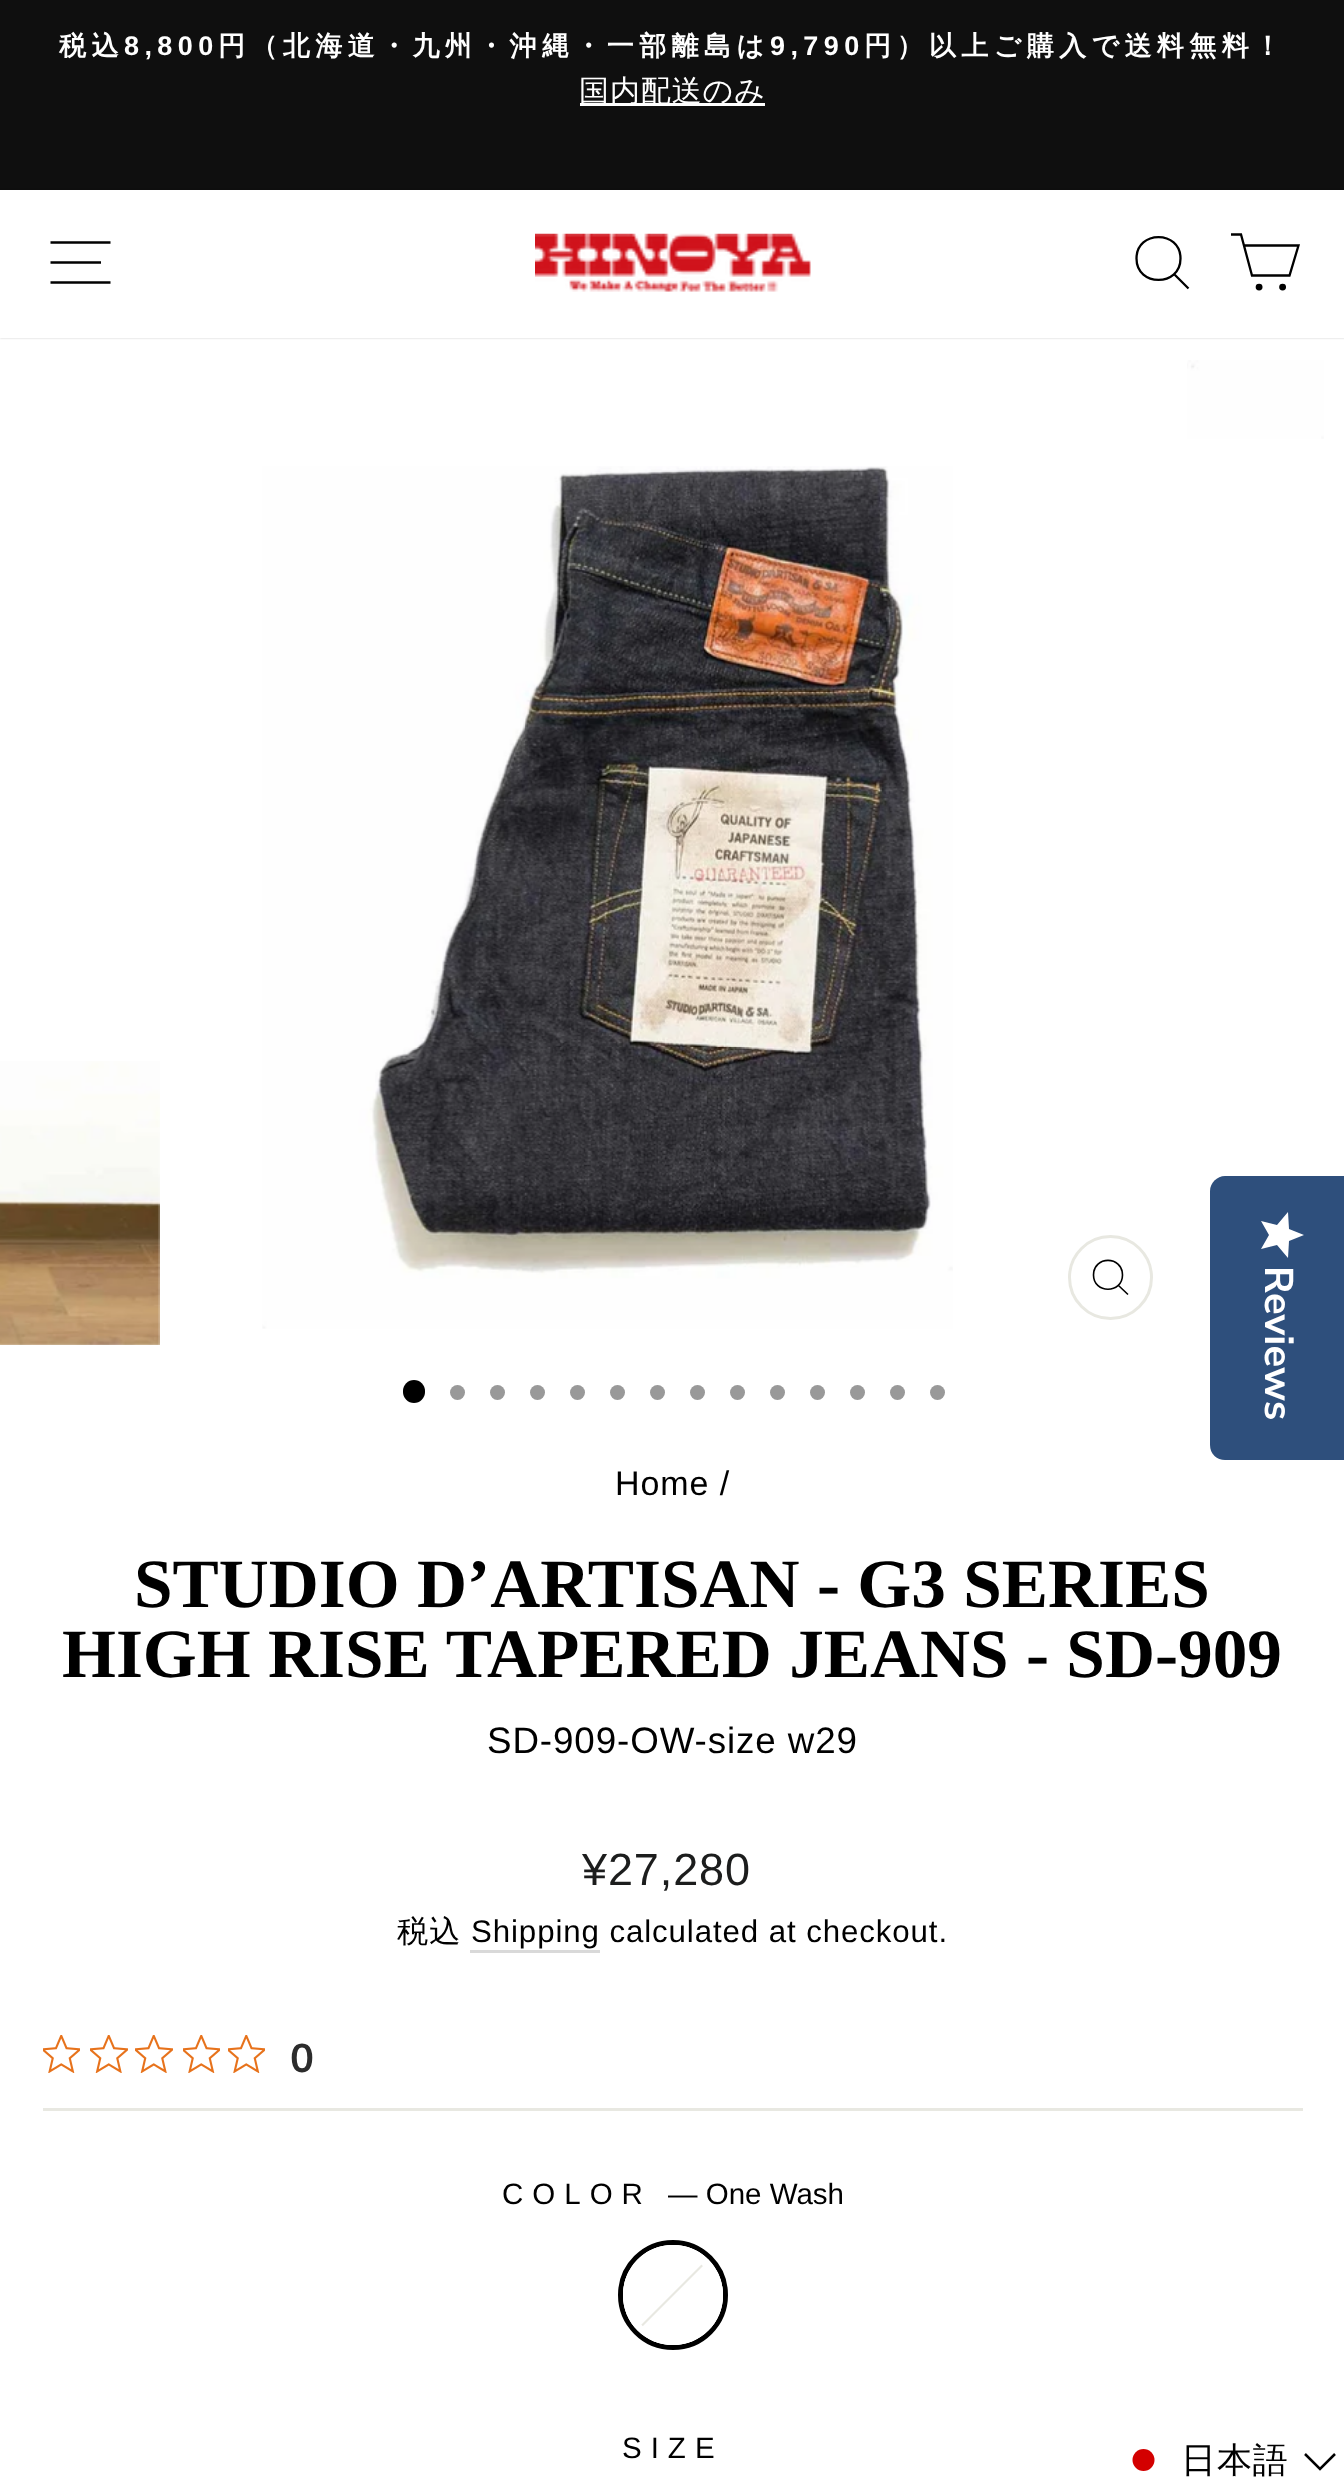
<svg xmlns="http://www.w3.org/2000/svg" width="1344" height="2486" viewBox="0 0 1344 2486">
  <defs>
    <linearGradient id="g1" gradientUnits="userSpaceOnUse" x1="1304" y1="1213" x2="1304" y2="1258"><stop offset="1" stop-color="rgb(255,255,255)"/><stop offset="1" stop-color="rgb(234,234,234)"/></linearGradient>
  </defs>
  <rect width="100%" height="100%" fill="rgb(255,255,255)"/>
  <rect x="0" y="0" width="1344" height="190" fill="rgb(15,15,15)"/>
  <text x="59" y="55" font-family="WenQuanYi Zen Hei" font-size="27" font-weight="bold" letter-spacing="5.4" fill="rgb(255,255,255)">税込</text>
  <text x="124" y="55" font-family="Liberation Sans" font-size="27" font-weight="bold" letter-spacing="5.4" fill="rgb(255,255,255)">8,800</text>
  <text x="218" y="55" font-family="WenQuanYi Zen Hei" font-size="27" font-weight="bold" letter-spacing="5.4" fill="rgb(255,255,255)">円（北海道・九州・沖縄・一部離島は</text>
  <text x="770" y="55" font-family="Liberation Sans" font-size="27" font-weight="bold" letter-spacing="5.4" fill="rgb(255,255,255)">9,790</text>
  <text x="864" y="55" font-family="WenQuanYi Zen Hei" font-size="27" font-weight="bold" letter-spacing="5.4" fill="rgb(255,255,255)">円）以上ご購入で送料無料！</text>
  <rect x="580" y="103" width="185" height="3" fill="rgb(255,255,255)"/>
  <text x="579" y="101" font-family="WenQuanYi Zen Hei" font-size="30" font-weight="500" letter-spacing="0.9" fill="rgb(255,255,255)">国内配送のみ</text>
  <rect x="0" y="190" width="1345" height="148" fill="rgba(0,0,0,0.2)" filter="blur(1px)"/>
  <rect x="0" y="190" width="1344" height="148" fill="rgb(255,255,255)"/>
  <path d="M50.5 242.5H110.5M50.5 262.5H101M50.5 282.5H110.5" fill="none" stroke="rgb(0,0,0)" stroke-width="2.3"/>
  <image x="535" y="233" width="276" height="59" href="pic1.png"/>
  <path d="M1180.5 258.5C1180.5 287 1136.5 287 1136.5 258.5C1136.5 230 1180.5 230 1180.5 258.5ZM1188.5 288.5L1174 274" fill="none" stroke="rgb(0,0,0)" stroke-width="2.3"/>
  <path d="M1244 245.5H1298.5L1289.5 275.5H1252L1241 234.5H1231" fill="none" stroke="rgb(0,0,0)" stroke-width="2.3"/>
  <circle cx="1259.1" cy="287.1" r="2.3" fill="rgb(0,0,0)" stroke="rgb(0,0,0)" stroke-width="2.3"/>
  <circle cx="1282.6" cy="287.1" r="2.3" fill="rgb(0,0,0)" stroke="rgb(0,0,0)" stroke-width="2.3"/>
  <image x="1187" y="360" width="137" height="79" href="pic2.png"/>
  <image x="0" y="1061" width="160" height="284" href="pic3.png"/>
  <image x="262" y="466" width="691" height="863" href="pic4.png"/>
  <circle cx="1110.5" cy="1277.5" r="41" fill="none" stroke="rgb(232,232,225)" stroke-width="3"/>
  <path d="M1122.5 1275C1122.5 1294 1093.5 1294 1093.5 1275C1093.5 1255.5 1122.5 1255.5 1122.5 1275ZM1128 1294.5L1118.5 1285.5" fill="none" stroke="rgb(0,0,0)" stroke-width="1.6"/>
  <rect x="403" y="1380" width="22" height="23" rx="11" fill="rgb(0,0,0)"/>
  <circle cx="457.5" cy="1392.5" r="7.5" fill="rgb(153,153,153)"/>
  <circle cx="497.5" cy="1392.5" r="7.5" fill="rgb(153,153,153)"/>
  <circle cx="537.5" cy="1392.5" r="7.5" fill="rgb(153,153,153)"/>
  <circle cx="577.5" cy="1392.5" r="7.5" fill="rgb(153,153,153)"/>
  <circle cx="617.5" cy="1392.5" r="7.5" fill="rgb(153,153,153)"/>
  <circle cx="657.5" cy="1392.5" r="7.5" fill="rgb(153,153,153)"/>
  <circle cx="697.5" cy="1392.5" r="7.5" fill="rgb(153,153,153)"/>
  <circle cx="737.5" cy="1392.5" r="7.5" fill="rgb(153,153,153)"/>
  <circle cx="777.5" cy="1392.5" r="7.5" fill="rgb(153,153,153)"/>
  <circle cx="817.5" cy="1392.5" r="7.5" fill="rgb(153,153,153)"/>
  <circle cx="857.5" cy="1392.5" r="7.5" fill="rgb(153,153,153)"/>
  <circle cx="897.5" cy="1392.5" r="7.5" fill="rgb(153,153,153)"/>
  <circle cx="937.5" cy="1392.5" r="7.5" fill="rgb(153,153,153)"/>
  <text x="615" y="1495" font-family="Liberation Sans" font-size="34" letter-spacing="0.9" fill="rgb(0,0,0)">Home /</text>
  <g font-family="Liberation Serif" font-size="69.3" font-weight="bold" fill="rgb(0,0,0)">
    <text x="134" y="1607">STUDIO D’ARTISAN - G3 SERIES</text>
    <text x="62" y="1677">HIGH RISE TAPERED JEANS - SD-909</text>
  </g>
  <text x="487" y="1753" font-family="Liberation Sans" font-size="36.75" letter-spacing="0.9" fill="rgb(0,0,0)">SD-909-OW-size w29</text>
  <text x="582" y="1885" font-family="Liberation Sans" font-size="45" letter-spacing="0.9" fill="rgb(28,29,29)">¥27,280</text>
  <text x="397" y="1942" font-family="WenQuanYi Zen Hei" font-size="31.25" font-weight="500" letter-spacing="0.9" fill="rgb(0,0,0)">税込</text>
  <text x="471" y="1942" font-family="Liberation Sans" font-size="31.25" letter-spacing="0.9" fill="rgb(0,0,0)">Shipping calculated at checkout.</text>
  <rect x="470" y="1950" width="130" height="3" fill="rgb(217,217,217)"/>
  <image x="43" y="2035" width="37" height="38" href="pic5.png"/>
  <image x="90" y="2035" width="38" height="38" href="pic6.png"/>
  <image x="135" y="2035" width="38" height="38" href="pic6.png"/>
  <image x="183" y="2035" width="37" height="38" href="pic5.png"/>
  <image x="228" y="2035" width="37" height="38" href="pic5.png"/>
  <text x="290" y="2072" font-family="Nunito Sans" font-size="40" font-weight="200" fill="rgb(44,44,44)">0</text>
  <rect x="43" y="2108" width="1260" height="3" fill="rgb(232,232,225)"/>
  <text x="502" y="2204" font-family="Liberation Sans" font-size="29.5" letter-spacing="9" fill="rgb(0,0,0)">COLOR</text>
  <text x="668" y="2204" font-family="Liberation Sans" font-size="29.5" fill="rgb(0,0,0)">— One Wash</text>
  <circle cx="673" cy="2295" r="52.5" fill="none" stroke="rgb(0,0,0)" stroke-width="5"/>
  <circle cx="673" cy="2295" r="50" fill="rgb(255,255,255)"/>
  <path d="M707 2259L709 2260L639 2330L638 2328Z" fill="rgb(232,232,225)"/>
  <path d="M673 2245C645 2245 623 2267 623 2295C623 2323 645 2345 673 2345C701 2345 723 2323 723 2295C723 2267 701 2245 673 2245ZM672 2253C649 2253 630 2272 630 2296C630 2319 649 2338 672 2338C696 2338 715 2319 715 2296C715 2272 696 2253 672 2253Z" fill="rgb(255,255,255)" fill-rule="evenodd"/>
  <text x="622" y="2458" font-family="Liberation Sans" font-size="29.5" letter-spacing="9" fill="rgb(0,0,0)">SIZE</text>
  <path d="M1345 1176V1460H1225C1217 1460 1210 1454 1210 1445V1191C1210 1183 1217 1176 1225 1176Z" fill="rgb(46,79,124)"/>
  <path d="M1269 1235L1261 1221L1277 1225L1288 1212L1289 1229L1304 1235L1289 1241L1288 1258L1277 1245L1261 1249Z" fill="url(#g1)"/>
  <text x="1265" y="1266" transform="rotate(90 1265 1266)" font-family="Nunito Sans" font-size="40" font-weight="200" fill="rgb(255,255,255)">Reviews</text>
  <circle cx="1143.5" cy="2460" r="11" fill="rgb(211,0,0)"/>
  <text x="1181" y="2472" font-family="WenQuanYi Zen Hei" font-size="35" font-weight="500" letter-spacing="0.9" fill="rgb(0,0,0)">日本語</text>
  <path d="M1305 2454L1320 2469L1335 2454" fill="none" stroke="rgb(0,0,0)" stroke-width="2.5"/>
</svg>
